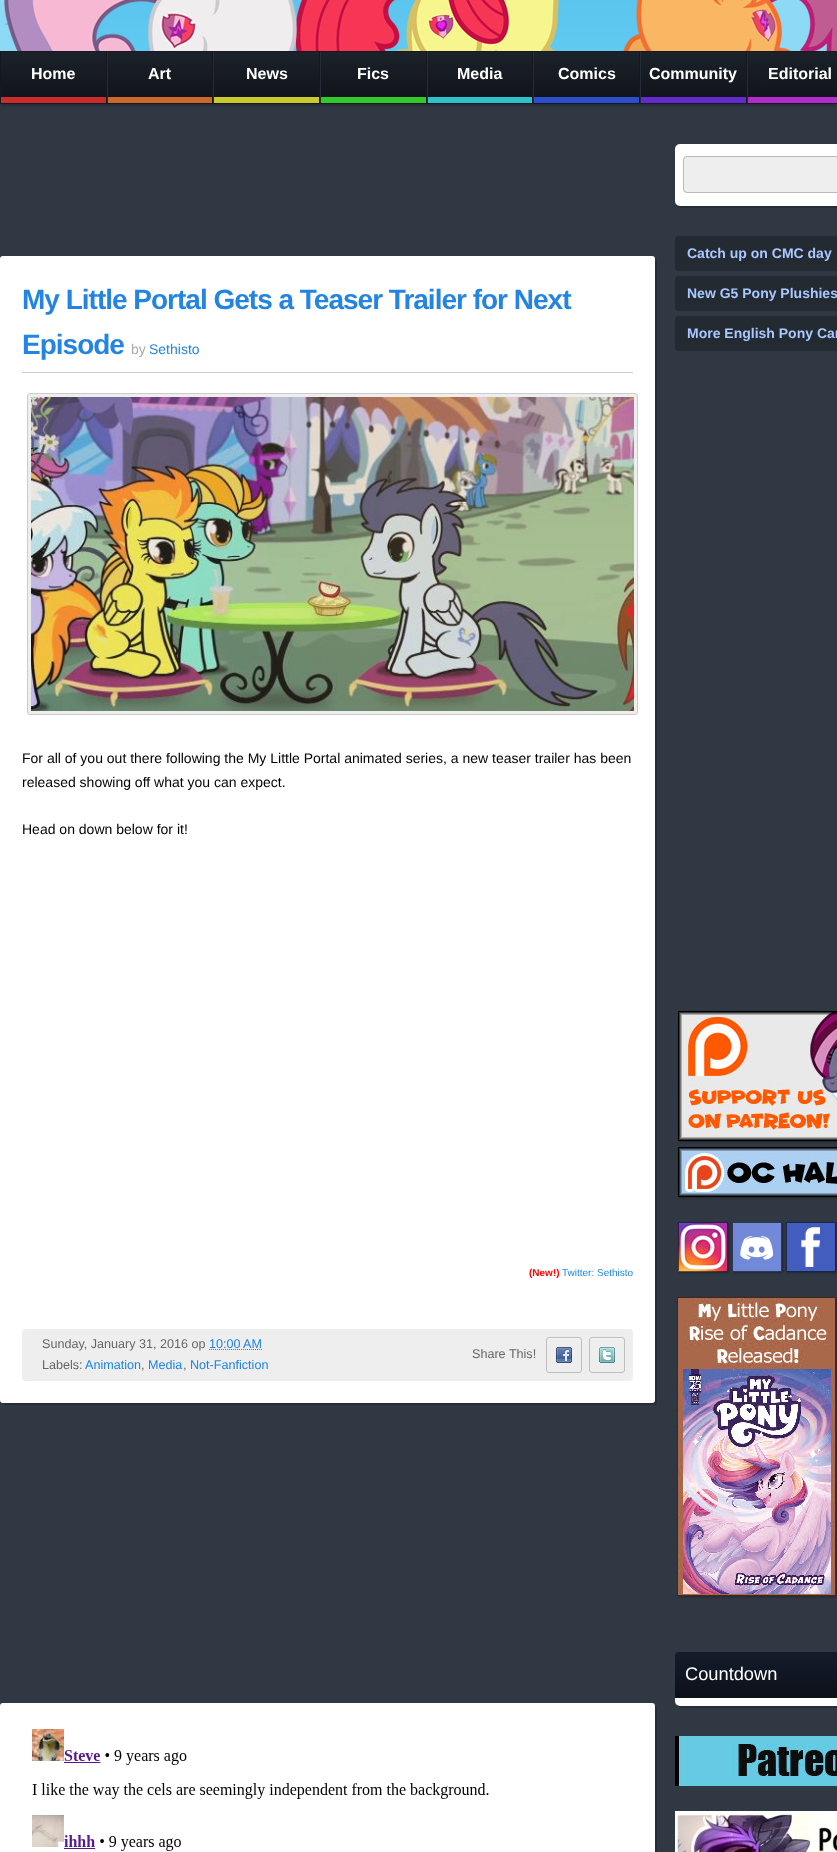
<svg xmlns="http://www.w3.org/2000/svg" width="837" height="1852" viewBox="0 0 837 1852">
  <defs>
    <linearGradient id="g1" gradientUnits="userSpaceOnUse" x1="54" y1="52" x2="54" y2="97"><stop offset="0" stop-color="rgb(28,34,43)"/><stop offset="1" stop-color="rgb(17,20,26)"/></linearGradient>
    <linearGradient id="g2" gradientUnits="userSpaceOnUse" x1="160" y1="52" x2="160" y2="97"><stop offset="0" stop-color="rgb(28,34,43)"/><stop offset="1" stop-color="rgb(17,20,26)"/></linearGradient>
    <linearGradient id="g3" gradientUnits="userSpaceOnUse" x1="267" y1="52" x2="267" y2="97"><stop offset="0" stop-color="rgb(28,34,43)"/><stop offset="1" stop-color="rgb(17,20,26)"/></linearGradient>
    <linearGradient id="g4" gradientUnits="userSpaceOnUse" x1="374" y1="52" x2="374" y2="97"><stop offset="0" stop-color="rgb(28,34,43)"/><stop offset="1" stop-color="rgb(17,20,26)"/></linearGradient>
    <linearGradient id="g5" gradientUnits="userSpaceOnUse" x1="480" y1="52" x2="480" y2="97"><stop offset="0" stop-color="rgb(28,34,43)"/><stop offset="1" stop-color="rgb(17,20,26)"/></linearGradient>
    <linearGradient id="g6" gradientUnits="userSpaceOnUse" x1="587" y1="52" x2="587" y2="97"><stop offset="0" stop-color="rgb(28,34,43)"/><stop offset="1" stop-color="rgb(17,20,26)"/></linearGradient>
    <linearGradient id="g7" gradientUnits="userSpaceOnUse" x1="694" y1="52" x2="694" y2="97"><stop offset="0" stop-color="rgb(28,34,43)"/><stop offset="1" stop-color="rgb(17,20,26)"/></linearGradient>
    <linearGradient id="g8" gradientUnits="userSpaceOnUse" x1="800" y1="52" x2="800" y2="97"><stop offset="0" stop-color="rgb(28,34,43)"/><stop offset="1" stop-color="rgb(17,20,26)"/></linearGradient>
    <linearGradient id="g9" gradientUnits="userSpaceOnUse" x1="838" y1="1652" x2="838" y2="1697"><stop offset="0" stop-color="rgb(20,28,43)"/><stop offset="1" stop-color="rgb(12,16,26)"/></linearGradient>
  </defs>
  <rect width="100%" height="100%" fill="rgb(48,56,67)"/>
  <rect x="0" y="53" width="837" height="53" fill="rgba(0,0,0,0.2)" filter="blur(1.5px)"/>
  <image x="0" y="0" width="828" height="51" href="pic1.png"/>
  <image x="4" y="0" width="833" height="51" href="pic2.png"/>
  <rect x="0" y="51" width="837" height="1" fill="rgb(22,27,34)"/>
  <rect x="0" y="103" width="837" height="1" fill="rgb(22,27,34)"/>
  <rect x="106" y="52" width="1" height="51" fill="rgb(20,24,30)"/>
  <rect x="0" y="52" width="1" height="51" fill="rgb(20,24,30)"/>
  <rect x="1" y="52" width="105" height="45" fill="url(#g1)"/>
  <rect x="1" y="97" width="105" height="6" fill="rgb(203,43,43)"/>
  <text x="31" y="79" font-family="Liberation Sans" font-size="16" font-weight="bold" fill="rgb(255,255,255)">Home</text>
  <rect x="212" y="52" width="1" height="51" fill="rgb(20,24,30)"/>
  <rect x="107" y="52" width="1" height="2" fill="rgb(39,45,54)"/>
  <rect x="108" y="52" width="104" height="45" fill="url(#g2)"/>
  <rect x="108" y="97" width="104" height="6" fill="rgb(203,104,43)"/>
  <text x="148" y="79" font-family="Liberation Sans" font-size="16" font-weight="bold" fill="rgb(255,255,255)">Art</text>
  <rect x="319" y="52" width="1" height="51" fill="rgb(20,24,30)"/>
  <rect x="213" y="52" width="1" height="2" fill="rgb(39,45,54)"/>
  <rect x="214" y="52" width="105" height="45" fill="url(#g3)"/>
  <rect x="214" y="97" width="105" height="6" fill="rgb(200,203,43)"/>
  <text x="246" y="79" font-family="Liberation Sans" font-size="16" font-weight="bold" fill="rgb(255,255,255)">News</text>
  <rect x="426" y="52" width="1" height="51" fill="rgb(20,24,30)"/>
  <rect x="320" y="52" width="1" height="2" fill="rgb(39,45,54)"/>
  <rect x="321" y="52" width="105" height="45" fill="url(#g4)"/>
  <rect x="321" y="97" width="105" height="6" fill="rgb(48,203,43)"/>
  <text x="357" y="79" font-family="Liberation Sans" font-size="16" font-weight="bold" fill="rgb(255,255,255)">Fics</text>
  <rect x="532" y="52" width="1" height="51" fill="rgb(20,24,30)"/>
  <rect x="427" y="52" width="1" height="2" fill="rgb(39,45,54)"/>
  <rect x="428" y="52" width="104" height="45" fill="url(#g5)"/>
  <rect x="428" y="97" width="104" height="6" fill="rgb(43,194,203)"/>
  <text x="457" y="79" font-family="Liberation Sans" font-size="16" font-weight="bold" fill="rgb(255,255,255)">Media</text>
  <rect x="639" y="52" width="1" height="51" fill="rgb(20,24,30)"/>
  <rect x="533" y="52" width="1" height="2" fill="rgb(39,45,54)"/>
  <rect x="534" y="52" width="105" height="45" fill="url(#g6)"/>
  <rect x="534" y="97" width="105" height="6" fill="rgb(43,79,203)"/>
  <text x="558" y="79" font-family="Liberation Sans" font-size="16" font-weight="bold" fill="rgb(255,255,255)">Comics</text>
  <rect x="746" y="52" width="1" height="51" fill="rgb(20,24,30)"/>
  <rect x="640" y="52" width="1" height="2" fill="rgb(39,45,54)"/>
  <rect x="641" y="52" width="105" height="45" fill="url(#g7)"/>
  <rect x="641" y="97" width="105" height="6" fill="rgb(99,43,203)"/>
  <text x="649" y="79" font-family="Liberation Sans" font-size="16" font-weight="bold" fill="rgb(255,255,255)">Community</text>
  <rect x="747" y="52" width="1" height="2" fill="rgb(39,45,54)"/>
  <rect x="748" y="52" width="89" height="45" fill="url(#g8)"/>
  <rect x="748" y="97" width="89" height="6" fill="rgb(179,43,203)"/>
  <text x="768" y="79" font-family="Liberation Sans" font-size="16" font-weight="bold" fill="rgb(255,255,255)">Editorial</text>
  <path d="M2 1403C3 1404 4 1405 5 1405H654C656 1405 657 1404 657 1402V261C657 260 656 259 655 258V1400C655 1402 654 1403 652 1403Z" fill="rgb(38,45,54)"/>
  <rect x="0" y="256" width="655" height="1147" rx="3" fill="rgb(255,255,255)"/>
  <rect x="22" y="372" width="611" height="1" fill="rgb(204,204,204)"/>
  <g font-family="Liberation Sans" font-size="28" font-weight="bold" letter-spacing="-1" fill="rgb(35,133,225)">
    <text>
      <tspan x="22" y="309">My Little Portal Gets a Teaser Trailer for Next</tspan>
      <tspan x="22" y="354">Episode</tspan>
    </text>
  </g>
  <text x="131" y="354" font-family="Liberation Sans" font-size="14" fill="rgb(170,170,170)">by</text>
  <text x="149" y="354" font-family="Liberation Sans" font-size="14" fill="rgb(35,133,225)">Sethisto</text>
  <rect x="27.5" y="393.5" width="610" height="321" rx="2.5" fill="rgb(238,238,238)" stroke="rgb(204,204,204)"/>
  <image x="31" y="397" width="603" height="314" href="pic3.png"/>
  <g font-family="Liberation Sans" font-size="14" fill="rgb(0,0,0)">
    <text>
      <tspan x="22" y="763">For all of you out there following the My Little Portal animated series, a new teaser trailer has been</tspan>
      <tspan x="22" y="787">released showing off what you can expect.</tspan>
    </text>
    <text x="22" y="834">Head on down below for it!</text>
  </g>
  <text x="529" y="1276" font-family="Liberation Sans" font-size="10" font-weight="bold" fill="rgb(255,0,0)">(New!)</text>
  <text x="562" y="1276" font-family="Liberation Sans" font-size="10" fill="rgb(35,133,225)">Twitter: Sethisto</text>
  <rect x="22" y="1329" width="611" height="52" rx="4" fill="rgb(238,238,238)"/>
  <text x="42" y="1348" font-family="Liberation Sans" font-size="12.6" fill="rgb(102,102,102)">Sunday, January 31, 2016 op</text>
  <text x="209" y="1348" font-family="Liberation Sans" font-size="12.6" fill="rgb(35,133,225)">10:00 AM</text>
  <path d="M209 1349.5H262" fill="none" stroke="rgb(35,133,225)" stroke-dasharray="1 1"/>
  <text x="42" y="1369" font-family="Liberation Sans" font-size="12.6" fill="rgb(102,102,102)">Labels:</text>
  <text x="85" y="1369" font-family="Liberation Sans" font-size="12.6" fill="rgb(35,133,225)">Animation</text>
  <text x="141" y="1369" font-family="Liberation Sans" font-size="12.6" fill="rgb(102,102,102)">,</text>
  <text x="148" y="1369" font-family="Liberation Sans" font-size="12.6" fill="rgb(35,133,225)">Media</text>
  <text x="183" y="1369" font-family="Liberation Sans" font-size="12.6" fill="rgb(102,102,102)">,</text>
  <text x="190" y="1369" font-family="Liberation Sans" font-size="12.6" fill="rgb(35,133,225)">Not-Fanfiction</text>
  <text x="472" y="1358" font-family="Liberation Sans" font-size="12.6" fill="rgb(102,102,102)">Share This!</text>
  <path d="M549 1339H579C580 1339 581 1340 581 1341C581 1336.5 578 1338 574 1338H554C550 1338 547 1336.5 547 1341C547 1340 548 1339 549 1339Z" fill="rgb(245,245,245)"/>
  <rect x="546.5" y="1337.5" width="35" height="35" rx="2.5" fill="none" stroke="rgb(190,190,190)"/>
  <image x="556" y="1347" width="16" height="16" href="pic4.png"/>
  <path d="M592 1339H622C623 1339 624 1340 624 1341C624 1336.5 621 1338 617 1338H597C593 1338 590 1336.5 590 1341C590 1340 591 1339 592 1339Z" fill="rgb(245,245,245)"/>
  <rect x="589.5" y="1337.5" width="35" height="35" rx="2.5" fill="none" stroke="rgb(190,190,190)"/>
  <image x="599" y="1347" width="16" height="16" href="pic5.png"/>
  <path d="M2 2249C3 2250 4 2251 5 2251H654C656 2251 657 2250 657 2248V1708C657 1707 656 1706 655 1705V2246C655 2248 654 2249 652 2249Z" fill="rgb(38,45,54)"/>
  <rect x="0" y="1703" width="655" height="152" rx="3" fill="rgb(255,255,255)"/>
  <image x="32" y="1729" width="457" height="122" href="pic6.png"/>
  <path d="M678 205C678 207 680 208 682 208H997C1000 208 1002 206 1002 203V151C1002 149 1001 147 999 147L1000 149V201C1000 204 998 206 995 206H680Z" fill="rgb(38,45,54)"/>
  <rect x="675" y="144" width="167" height="62" rx="5" fill="rgb(255,255,255)"/>
  <rect x="683.5" y="156.5" width="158" height="36" rx="3.5" fill="rgb(238,238,238)" stroke="rgb(186,186,186)"/>
  <rect x="675" y="236" width="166" height="35" rx="4" fill="rgb(36,42,50)"/>
  <text x="687" y="258" font-family="Liberation Sans" font-size="14" font-weight="bold" fill="rgb(169,200,255)">Catch up on CMC day</text>
  <rect x="675" y="276" width="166" height="35" rx="4" fill="rgb(36,42,50)"/>
  <text x="687" y="298" font-family="Liberation Sans" font-size="14" font-weight="bold" fill="rgb(169,200,255)">New G5 Pony Plushies</text>
  <rect x="675" y="316" width="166" height="35" rx="4" fill="rgb(36,42,50)"/>
  <text x="687" y="338" font-family="Liberation Sans" font-size="14" font-weight="bold" fill="rgb(169,200,255)">More English Pony Car</text>
  <rect x="679" y="1012" width="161" height="130" fill="rgba(0,0,0,0.3)" filter="blur(1px)"/>
  <image x="678" y="1011" width="159" height="130" href="pic7.png"/>
  <rect x="678.5" y="1011.5" width="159" height="129" fill="none" stroke="rgba(0,0,0,0.6)"/>
  <rect x="679" y="1148" width="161" height="50" fill="rgba(0,0,0,0.3)" filter="blur(1px)"/>
  <image x="678" y="1147" width="159" height="50" href="pic8.png"/>
  <rect x="678.5" y="1147.5" width="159" height="49" fill="none" stroke="rgba(0,0,0,0.6)"/>
  <rect x="679" y="1223" width="50" height="50" fill="rgba(0,0,0,0.3)" filter="blur(1px)"/>
  <image x="678" y="1222" width="50" height="50" href="pic9.png"/>
  <rect x="678.5" y="1222.5" width="49" height="49" fill="none" stroke="rgba(0,0,0,0.6)"/>
  <rect x="733" y="1223" width="50" height="50" fill="rgba(0,0,0,0.3)" filter="blur(1px)"/>
  <image x="733" y="1223" width="48" height="48" href="pic10.png"/>
  <rect x="732.5" y="1222.5" width="49" height="49" fill="none" stroke="rgb(46,55,87)"/>
  <rect x="787" y="1223" width="50" height="50" fill="rgba(0,0,0,0.3)" filter="blur(1px)"/>
  <image x="787" y="1223" width="48" height="48" href="pic11.png"/>
  <rect x="786.5" y="1222.5" width="49" height="49" fill="none" stroke="rgb(27,37,76)"/>
  <rect x="678" y="1298" width="159" height="299" fill="rgba(0,0,0,0.3)" filter="blur(1px)"/>
  <image x="677" y="1297" width="159" height="299" href="pic12.png"/>
  <rect x="677.5" y="1297.5" width="158" height="298" fill="none" stroke="rgba(0,0,0,0.6)"/>
  <path d="M678 1705C678 1707 680 1708 682 1708H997C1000 1708 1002 1706 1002 1703V1659C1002 1657 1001 1655 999 1655L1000 1657V1701C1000 1704 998 1706 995 1706H680Z" fill="rgb(38,45,54)"/>
  <rect x="675" y="1652" width="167" height="54" rx="5" fill="rgb(255,255,255)"/>
  <path d="M678 1652H837C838.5 1652 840 1653.5 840 1655V1697H675V1655C675 1653.5 676.5 1652 678 1652Z" fill="url(#g9)"/>
  <rect x="675" y="1697" width="162" height="1" fill="rgb(14,20,30)"/>
  <text x="685" y="1680" font-family="Liberation Sans" font-size="18.25" fill="rgb(255,255,255)">Countdown</text>
  <image x="675" y="1736" width="162" height="50" href="pic13.png"/>
  <image x="675" y="1811" width="162" height="41" href="pic14.png"/>
</svg>
